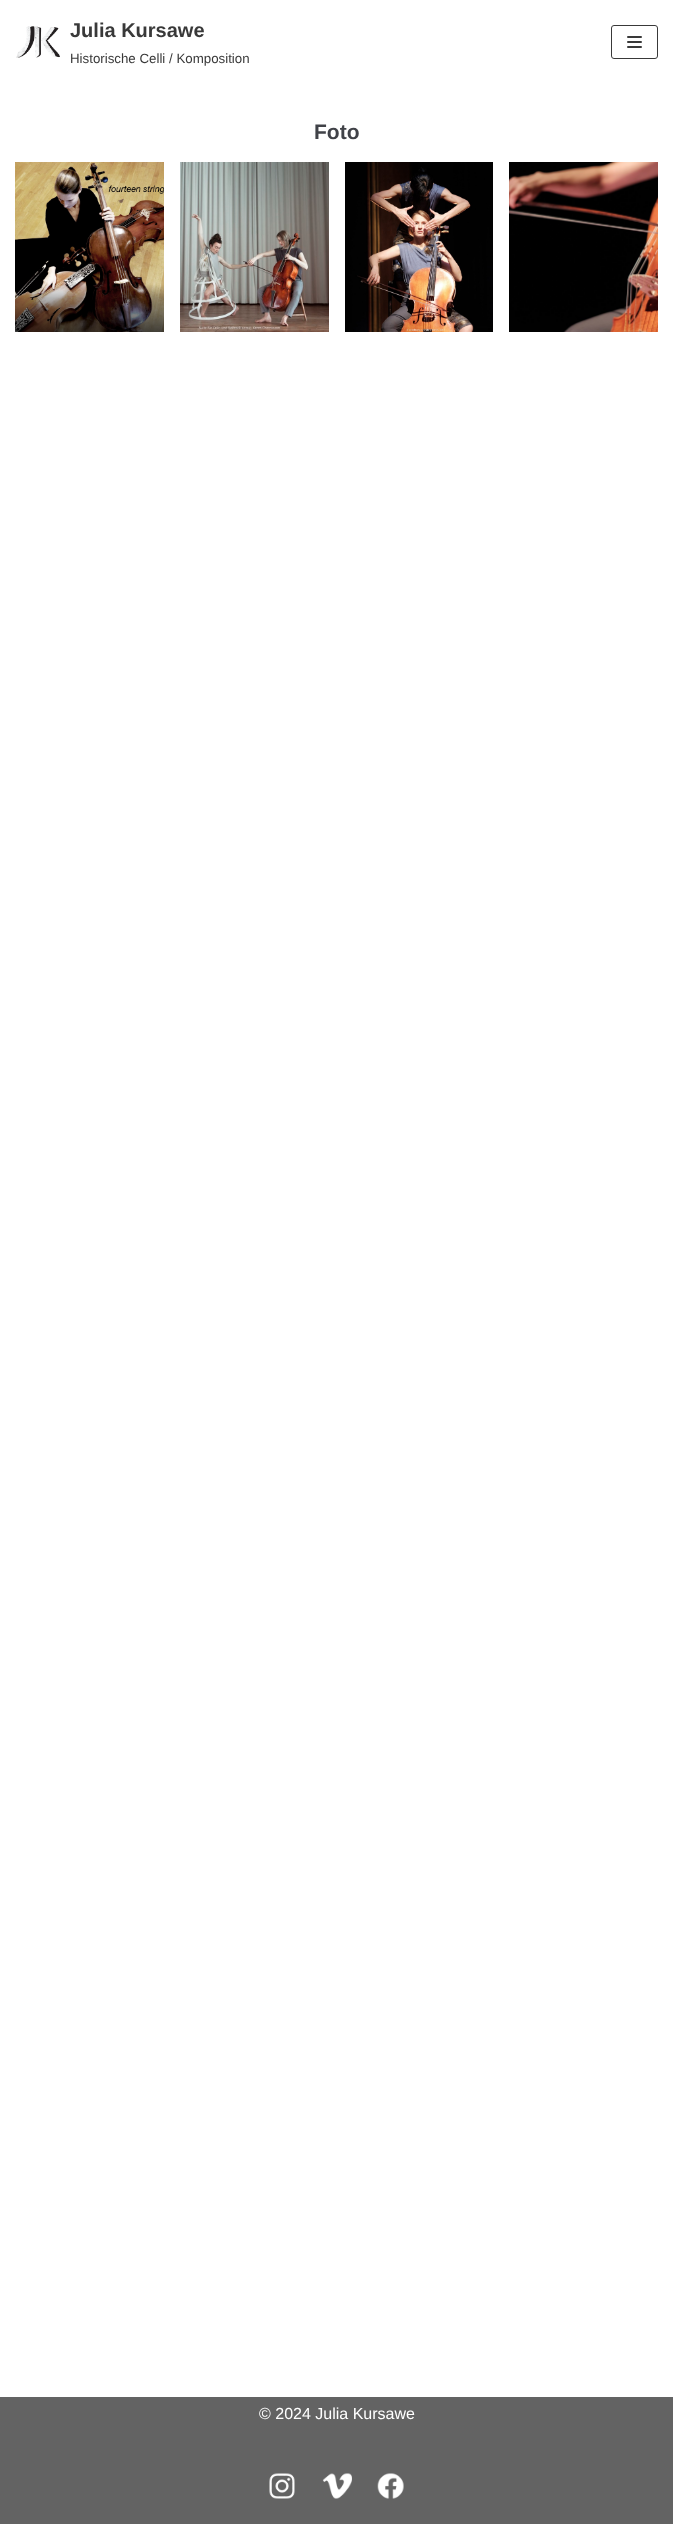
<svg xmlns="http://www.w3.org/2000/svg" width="673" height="2524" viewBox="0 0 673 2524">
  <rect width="100%" height="100%" fill="rgb(255,255,255)"/>
  <image x="16" y="26" width="44" height="32" href="pic1.png"/>
  <text x="70" y="37" font-family="Liberation Sans" font-size="20" font-weight="bold" fill="rgb(57,57,57)">Julia Kursawe</text>
  <text x="70" y="63" font-family="Liberation Sans" font-size="13.3" fill="rgb(57,57,57)">Historische Celli / Komposition</text>
  <rect x="611.5" y="25.5" width="46" height="33" rx="2.5" fill="none" stroke="rgb(57,57,57)"/>
  <rect x="627" y="36" width="15" height="2" rx="1" fill="rgb(57,57,57)"/>
  <rect x="627" y="41" width="15" height="2" rx="1" fill="rgb(57,57,57)"/>
  <rect x="627" y="46" width="15" height="2" rx="1" fill="rgb(57,57,57)"/>
  <text x="314" y="139" font-family="Liberation Sans" font-size="21" font-weight="bold" fill="rgb(64,66,72)">Foto</text>
  <image x="15" y="162" width="149" height="170" href="pic2.png"/>
  <image x="180" y="162" width="149" height="170" href="pic3.png"/>
  <image x="345" y="162" width="148" height="170" href="pic4.png"/>
  <image x="509" y="162" width="149" height="170" href="pic5.png"/>
  <rect x="0" y="2397" width="673" height="127" fill="rgb(99,99,99)"/>
  <text x="259" y="2419" font-family="Liberation Sans" font-size="16" fill="rgb(255,255,255)">© 2024 Julia Kursawe</text>
  <image x="269" y="2473" width="26" height="26" href="pic6.png"/>
  <image x="322" y="2473" width="30" height="26" href="pic7.png"/>
  <image x="377" y="2473" width="27" height="26" href="pic8.png"/>
</svg>
